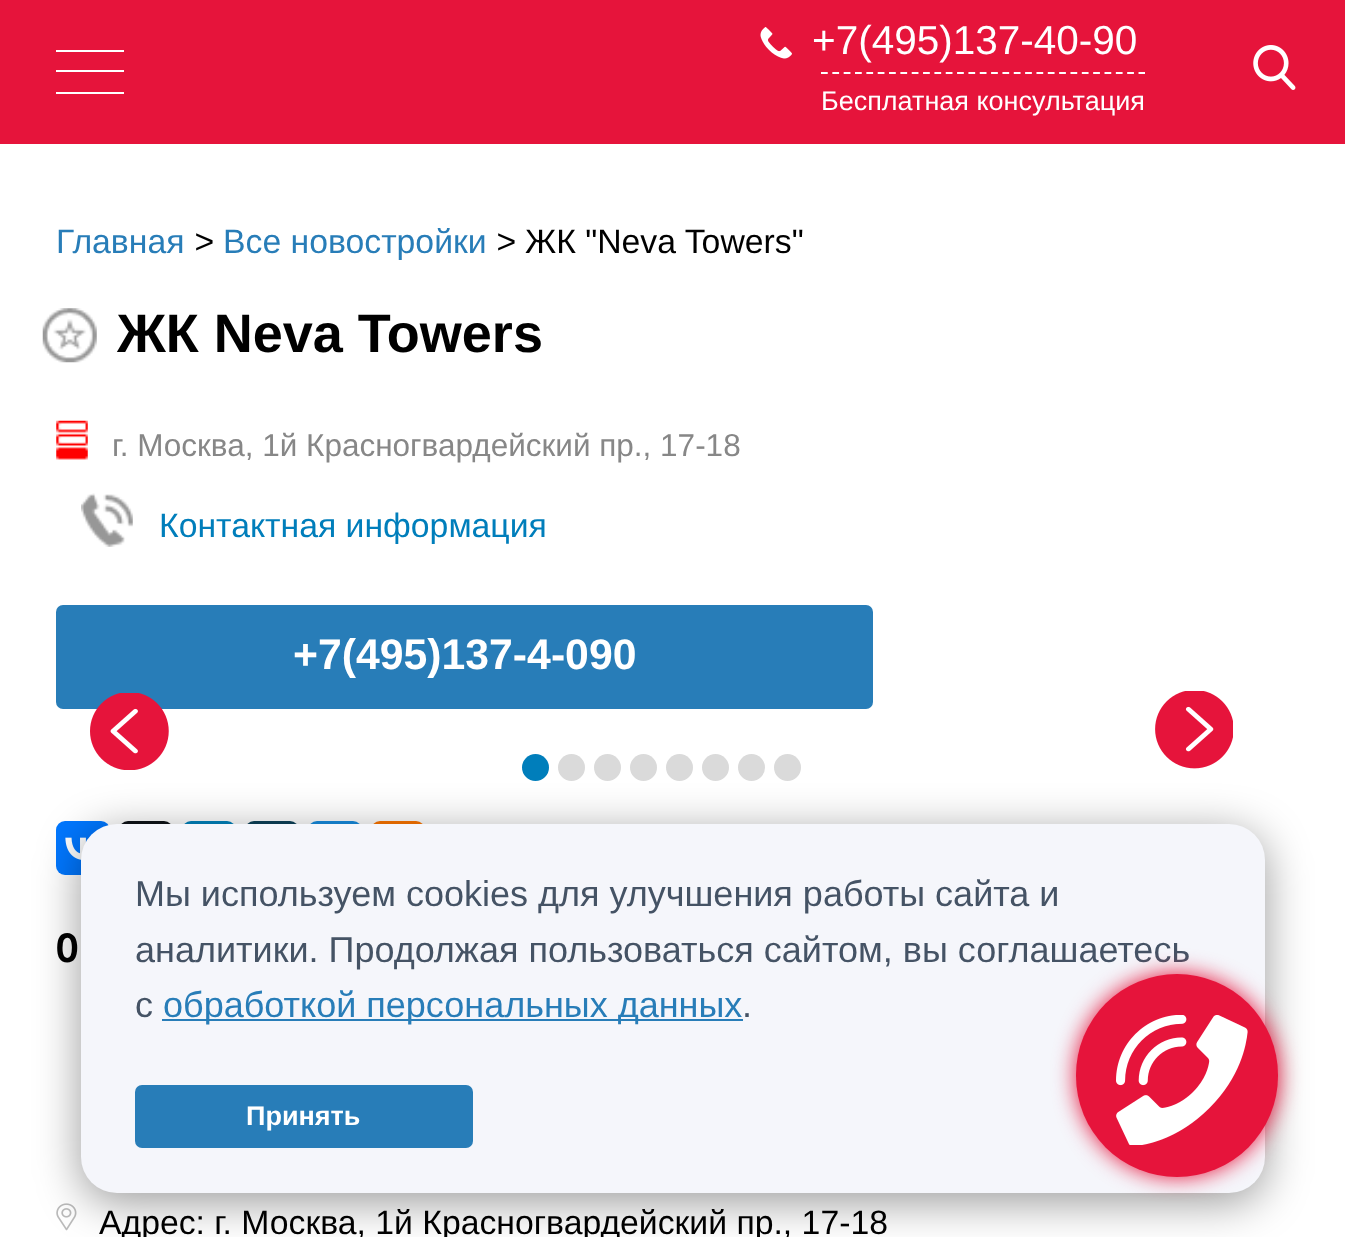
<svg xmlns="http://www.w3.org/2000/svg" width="1345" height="1237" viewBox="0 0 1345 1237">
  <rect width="100%" height="100%" fill="rgb(230,20,59)"/>
  <rect x="56" y="50" width="68" height="2" fill="rgb(255,255,255)"/>
  <rect x="56" y="70" width="68" height="2" fill="rgb(255,255,255)"/>
  <rect x="56" y="92" width="68" height="2" fill="rgb(255,255,255)"/>
  <image x="760" y="27" width="32" height="32" href="pic1.png"/>
  <text x="812" y="54" font-family="Liberation Sans" font-size="40.5" fill="rgb(255,255,255)">+7(495)137-40-90</text>
  <path d="M821 73H1145" fill="none" stroke="rgb(255,255,255)" stroke-width="2.2" stroke-dasharray="6.75 4.59"/>
  <text x="821" y="110" font-family="Liberation Sans" font-size="27" fill="rgb(255,255,255)">Бесплатная консультация</text>
  <image x="1253" y="45" width="43" height="45" href="pic2.png"/>
  <rect x="0" y="144" width="1345" height="1093" fill="rgb(255,255,255)"/>
  <text x="56" y="253" font-family="Liberation Sans" font-size="33.75" fill="rgb(40,125,184)">Главная</text>
  <text x="194" y="253" font-family="Liberation Sans" font-size="33.75" font-style="italic" fill="rgb(0,0,0)">&gt;</text>
  <text x="223" y="253" font-family="Liberation Sans" font-size="33.75" fill="rgb(40,125,184)">Все новостройки</text>
  <text x="496" y="253" font-family="Liberation Sans" font-size="33.75" font-style="italic" fill="rgb(0,0,0)">&gt;</text>
  <text x="525" y="253" font-family="Liberation Sans" font-size="33.75" fill="rgb(0,0,0)">ЖК "Neva Towers"</text>
  <image x="42" y="308" width="55" height="55" href="pic3.png"/>
  <text x="117" y="352" font-family="Liberation Sans" font-size="54" font-weight="bold" fill="rgb(0,0,0)">ЖК Neva Towers</text>
  <image x="56" y="420" width="32" height="40" href="pic4.png"/>
  <text x="112" y="456" font-family="Liberation Sans" font-size="31.5" fill="rgb(135,135,135)">г. Москва, 1й Красногвардейский пр., 17-18</text>
  <image x="81" y="493" width="52" height="54" href="pic5.png"/>
  <text x="159" y="537" font-family="Liberation Sans" font-size="33.75" fill="rgb(0,126,187)">Контактная информация</text>
  <rect x="56" y="605" width="817" height="104" rx="7" fill="rgb(40,125,184)"/>
  <text x="293" y="669" font-family="Liberation Sans" font-size="42.75" font-weight="bold" fill="rgb(255,255,255)">+7(495)137-4-090</text>
  <image x="90" y="693" width="79" height="77" href="pic6.png"/>
  <circle cx="535.5" cy="767.5" r="13.5" fill="rgb(0,126,187)"/>
  <circle cx="571.5" cy="767.5" r="13.5" fill="rgb(218,218,218)"/>
  <circle cx="607.5" cy="767.5" r="13.5" fill="rgb(218,218,218)"/>
  <circle cx="643.5" cy="767.5" r="13.5" fill="rgb(218,218,218)"/>
  <circle cx="679.5" cy="767.5" r="13.5" fill="rgb(218,218,218)"/>
  <circle cx="715.5" cy="767.5" r="13.5" fill="rgb(218,218,218)"/>
  <circle cx="751.5" cy="767.5" r="13.5" fill="rgb(218,218,218)"/>
  <circle cx="787.5" cy="767.5" r="13.5" fill="rgb(218,218,218)"/>
  <image x="1155" y="691" width="78" height="78" href="pic7.png"/>
  <rect x="56" y="821" width="54" height="54" rx="9" fill="rgb(0,119,255)"/>
  <image x="65" y="837" width="21" height="23" href="pic8.png"/>
  <rect x="119" y="821" width="54" height="54" rx="9" fill="rgb(15,20,25)"/>
  <rect x="182" y="821" width="54" height="54" rx="9" fill="rgb(0,131,190)"/>
  <rect x="245" y="821" width="54" height="54" rx="9" fill="rgb(13,66,90)"/>
  <rect x="308" y="821" width="54" height="54" rx="9" fill="rgb(22,141,226)"/>
  <rect x="371" y="821" width="54" height="54" rx="9" fill="rgb(255,119,0)"/>
  <text x="56" y="962" font-family="PT Sans Narrow" font-size="40.5" font-weight="bold" fill="rgb(0,0,0)">О</text>
  <image x="56" y="1203" width="21" height="28" href="pic9.png"/>
  <text x="99" y="1234" font-family="Liberation Sans" font-size="33.75" fill="rgb(0,0,0)">Адрес: г. Москва, 1й Красногвардейский пр., 17-18</text>
  <rect x="81" y="833" width="1184" height="369" rx="36" fill="rgba(0,0,0,0.4)" filter="blur(22.5px)"/>
  <rect x="81" y="824" width="1184" height="369" rx="36" fill="rgb(245,246,251)"/>
  <g font-family="Liberation Sans" font-size="36" fill="rgb(69,83,101)">
    <text>
      <tspan x="135" y="906">Мы используем cookies для улучшения работы сайта и</tspan>
      <tspan x="135" y="962">аналитики. Продолжая пользоваться сайтом, вы соглашаетесь</tspan>
      <tspan x="135" y="1017">с</tspan>
    </text>
  </g>
  <rect x="162" y="1019" width="581" height="2" fill="rgb(40,125,184)"/>
  <text x="163" y="1017" font-family="Liberation Sans" font-size="36" fill="rgb(40,125,184)">обработкой персональных данных</text>
  <text x="742" y="1017" font-family="Liberation Sans" font-size="36" fill="rgb(69,83,101)">.</text>
  <rect x="135" y="1085" width="338" height="63" rx="7" fill="rgb(40,125,184)"/>
  <text x="246" y="1125" font-family="Liberation Sans" font-size="27" font-weight="bold" fill="rgb(255,255,255)">Принять</text>
  <rect x="1076" y="974" width="202" height="203" rx="101" fill="rgb(230,20,59)" filter="blur(11px)"/>
  <rect x="1076" y="974" width="202" height="203" rx="101" fill="rgb(230,20,59)"/>
  <image x="1116" y="1015" width="132" height="130" href="pic10.png"/>
</svg>
